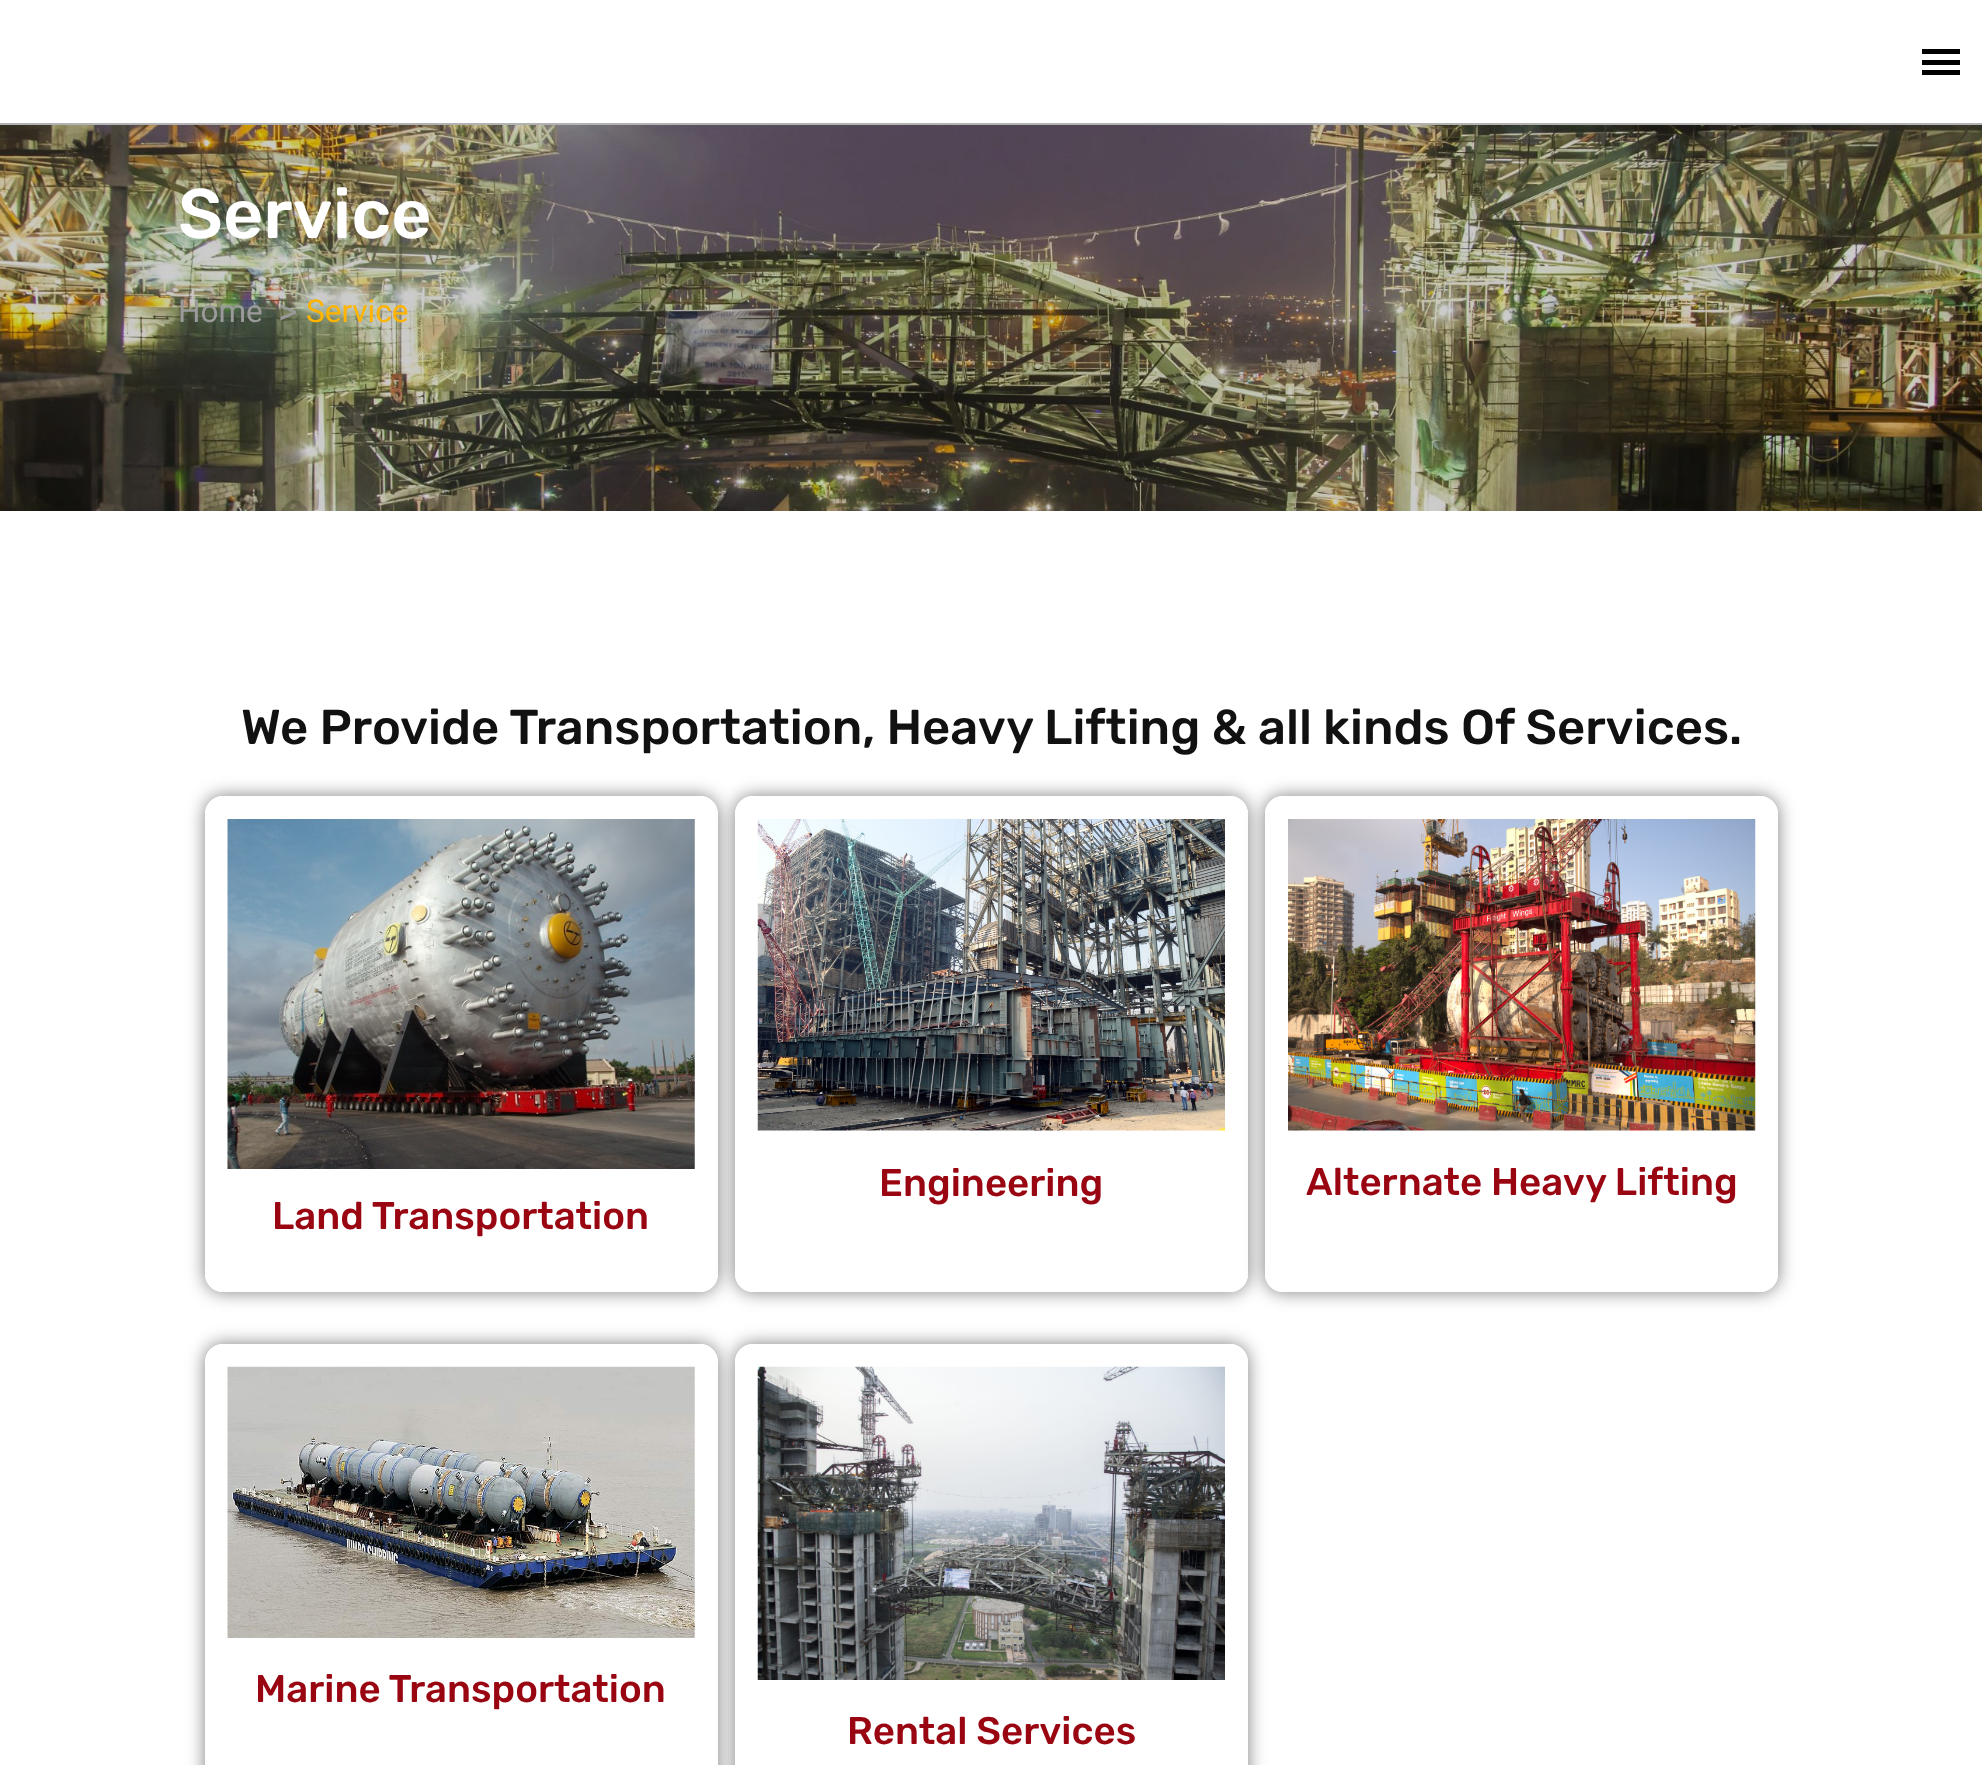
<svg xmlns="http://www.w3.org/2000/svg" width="1982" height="1765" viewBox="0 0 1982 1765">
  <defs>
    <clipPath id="clip1"><path d="M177 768H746V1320H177ZM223 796H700C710 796 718 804 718 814V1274C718 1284 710 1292 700 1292H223C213 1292 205 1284 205 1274V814C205 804 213 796 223 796Z" clip-rule="evenodd"/></clipPath>
    <clipPath id="clip2"><path d="M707 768H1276V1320H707ZM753 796H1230C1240 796 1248 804 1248 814V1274C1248 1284 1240 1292 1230 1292H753C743 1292 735 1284 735 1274V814C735 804 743 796 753 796Z" clip-rule="evenodd"/></clipPath>
    <clipPath id="clip3"><path d="M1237 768H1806V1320H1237ZM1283 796H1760C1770 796 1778 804 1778 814V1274C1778 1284 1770 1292 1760 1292H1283C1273 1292 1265 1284 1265 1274V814C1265 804 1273 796 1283 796Z" clip-rule="evenodd"/></clipPath>
    <clipPath id="clip4"><path d="M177 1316H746V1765H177ZM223 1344H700C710 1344 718 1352 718 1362V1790C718 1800 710 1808 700 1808H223C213 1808 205 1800 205 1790V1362C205 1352 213 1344 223 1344Z" clip-rule="evenodd"/></clipPath>
    <clipPath id="clip5"><path d="M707 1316H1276V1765H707ZM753 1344H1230C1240 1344 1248 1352 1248 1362V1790C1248 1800 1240 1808 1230 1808H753C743 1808 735 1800 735 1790V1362C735 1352 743 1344 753 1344Z" clip-rule="evenodd"/></clipPath>
  </defs>
  <rect width="100%" height="100%" fill="rgb(255,255,255)"/>
  <rect x="1922" y="49" width="38" height="5" fill="rgb(0,0,0)"/>
  <rect x="1922" y="60" width="38" height="5" fill="rgb(0,0,0)"/>
  <rect x="1922" y="70" width="38" height="5" fill="rgb(0,0,0)"/>
  <rect x="0" y="123" width="1982" height="2" fill="rgb(178,178,178)"/>
  <image x="0" y="125" width="1982" height="386" href="pic1.png"/>
  <text x="178" y="238" font-family="Rubik" font-size="70" font-weight="500" fill="rgb(255,255,255)">Service</text>
  <text x="178" y="322" font-family="Roboto" font-size="31.5" fill="rgb(155,154,154)">Home</text>
  <text x="278" y="324" font-family="Roboto" font-size="37" fill="rgb(155,154,154)">&gt;</text>
  <text x="306" y="322" font-family="Roboto" font-size="31.5" fill="rgb(255,180,0)">Service</text>
  <text x="241" y="744" font-family="Rubik" font-size="49" font-weight="500" fill="rgb(17,17,17)">We Provide Transportation, Heavy Lifting &amp; all kinds Of Services.</text>
  <g clip-path="url(#clip1)">
    <rect x="205" y="796" width="513" height="496" rx="18" fill="rgba(0,0,0,0.5)" filter="blur(9px)"/>
  </g>
  <rect x="207.5" y="798.5" width="508" height="491" rx="15.5" fill="none" stroke="rgb(255,255,255)" stroke-width="5"/>
  <g clip-path="url(#clip2)">
    <rect x="735" y="796" width="513" height="496" rx="18" fill="rgba(0,0,0,0.5)" filter="blur(9px)"/>
  </g>
  <rect x="737.5" y="798.5" width="508" height="491" rx="15.5" fill="none" stroke="rgb(255,255,255)" stroke-width="5"/>
  <image x="757" y="819" width="468" height="312" href="pic2.png"/>
  <text x="879" y="1196" font-family="Rubik" font-size="38.5" font-weight="500" fill="rgb(153,5,17)">Engineering</text>
  <g clip-path="url(#clip3)">
    <rect x="1265" y="796" width="513" height="496" rx="18" fill="rgba(0,0,0,0.5)" filter="blur(9px)"/>
  </g>
  <rect x="1267.5" y="798.5" width="508" height="491" rx="15.5" fill="none" stroke="rgb(255,255,255)" stroke-width="5"/>
  <image x="1288" y="819" width="468" height="312" href="pic3.png"/>
  <text x="1306" y="1195" font-family="Rubik" font-size="38.5" font-weight="500" fill="rgb(153,5,17)">Alternate Heavy Lifting</text>
  <image x="227" y="819" width="468" height="350" href="pic4.png"/>
  <text x="272" y="1229" font-family="Rubik" font-size="38.5" font-weight="500" fill="rgb(153,5,17)">Land Transportation</text>
  <g clip-path="url(#clip4)">
    <rect x="205" y="1344" width="513" height="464" rx="18" fill="rgba(0,0,0,0.5)" filter="blur(9px)"/>
  </g>
  <rect x="207.5" y="1346.5" width="508" height="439" rx="15.5" fill="none" stroke="rgb(255,255,255)" stroke-width="5"/>
  <image x="227" y="1366" width="468" height="272" href="pic5.png"/>
  <text x="255" y="1702" font-family="Rubik" font-size="38.5" font-weight="500" fill="rgb(153,5,17)">Marine Transportation</text>
  <g clip-path="url(#clip5)">
    <rect x="735" y="1344" width="513" height="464" rx="18" fill="rgba(0,0,0,0.5)" filter="blur(9px)"/>
  </g>
  <rect x="737.5" y="1346.5" width="508" height="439" rx="15.5" fill="none" stroke="rgb(255,255,255)" stroke-width="5"/>
  <image x="757" y="1366" width="468" height="314" href="pic6.png"/>
  <text x="847" y="1744" font-family="Rubik" font-size="38.5" font-weight="500" fill="rgb(153,5,17)">Rental Services</text>
</svg>
